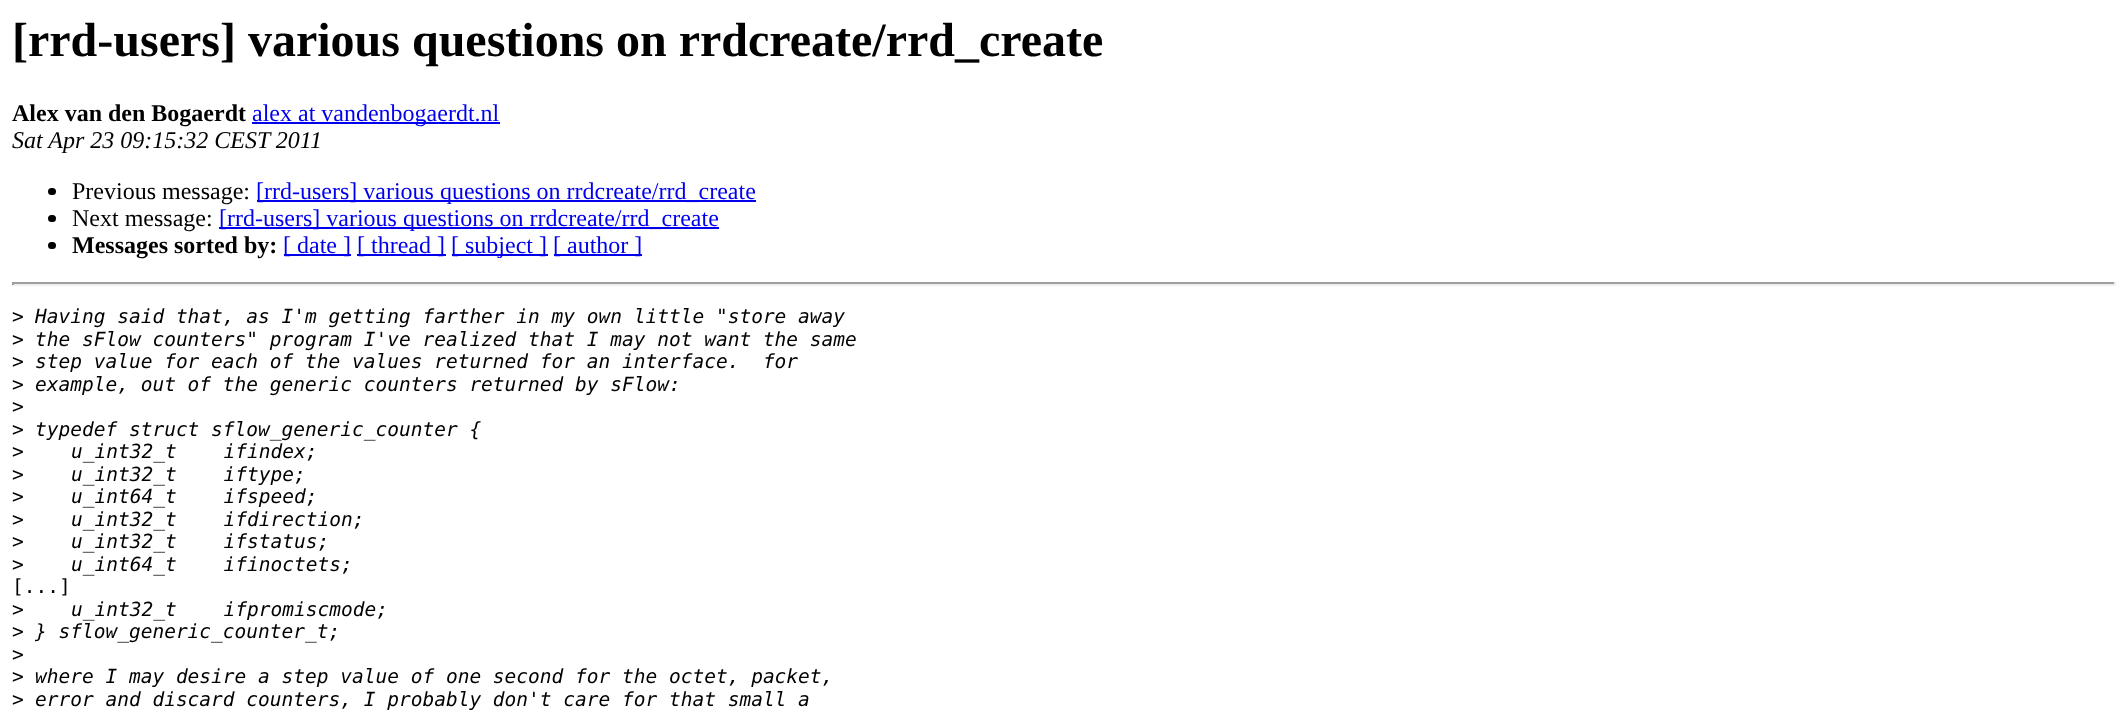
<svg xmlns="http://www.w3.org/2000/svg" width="2127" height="712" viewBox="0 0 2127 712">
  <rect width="100%" height="100%" fill="rgb(255,255,255)"/>
  <text x="12" y="56" font-family="Liberation Serif" font-size="48" font-weight="bold" fill="rgb(0,0,0)">[rrd-users] various questions on rrdcreate/rrd_create</text>
  <text x="12" y="121" font-family="Liberation Serif" font-size="24" font-weight="bold" fill="rgb(0,0,0)">Alex van den Bogaerdt</text>
  <rect x="252" y="122" width="248" height="2" fill="rgb(0,0,238)"/>
  <text x="252" y="121" font-family="Liberation Serif" font-size="24" fill="rgb(0,0,238)">alex at vandenbogaerdt.nl</text>
  <text x="12" y="148" font-family="Liberation Serif" font-size="24" font-style="italic" fill="rgb(0,0,0)">Sat Apr 23 09:15:32 CEST 2011</text>
  <rect x="48" y="188" width="8" height="7" rx="3.5" fill="rgb(0,0,0)"/>
  <text x="72" y="199" font-family="Liberation Serif" font-size="24" fill="rgb(0,0,0)">Previous message:</text>
  <rect x="257" y="200" width="499" height="2" fill="rgb(0,0,238)"/>
  <text x="256" y="199" font-family="Liberation Serif" font-size="24" fill="rgb(0,0,238)">[rrd-users] various questions on rrdcreate/rrd_create</text>
  <rect x="48" y="215" width="8" height="7" rx="3.5" fill="rgb(0,0,0)"/>
  <text x="72" y="226" font-family="Liberation Serif" font-size="24" fill="rgb(0,0,0)">Next message:</text>
  <rect x="219" y="227" width="500" height="2" fill="rgb(0,0,238)"/>
  <text x="219" y="226" font-family="Liberation Serif" font-size="24" fill="rgb(0,0,238)">[rrd-users] various questions on rrdcreate/rrd_create</text>
  <rect x="48" y="242" width="8" height="7" rx="3.5" fill="rgb(0,0,0)"/>
  <text x="72" y="253" font-family="Liberation Serif" font-size="24" font-weight="bold" fill="rgb(0,0,0)">Messages sorted by:</text>
  <rect x="284" y="254" width="67" height="2" fill="rgb(0,0,238)"/>
  <text x="283" y="253" font-family="Liberation Serif" font-size="24" fill="rgb(0,0,238)">[ date ]</text>
  <rect x="357" y="254" width="89" height="2" fill="rgb(0,0,238)"/>
  <text x="357" y="253" font-family="Liberation Serif" font-size="24" fill="rgb(0,0,238)">[ thread ]</text>
  <rect x="452" y="254" width="96" height="2" fill="rgb(0,0,238)"/>
  <text x="451" y="253" font-family="Liberation Serif" font-size="24" fill="rgb(0,0,238)">[ subject ]</text>
  <rect x="554" y="254" width="88" height="2" fill="rgb(0,0,238)"/>
  <text x="553" y="253" font-family="Liberation Serif" font-size="24" fill="rgb(0,0,238)">[ author ]</text>
  <rect x="12" y="282" width="2103" height="2" fill="rgb(159,159,159)"/>
  <rect x="2114" y="282" width="2" height="3" fill="rgb(238,238,238)"/>
  <rect x="12" y="284" width="2103" height="2" fill="rgb(238,238,238)"/>
  <rect x="12" y="282" width="2" height="3" fill="rgb(159,159,159)"/>
  <text x="12" y="323" font-family="DejaVu Sans Mono" font-size="19.5" fill="rgb(0,0,0)">&gt;</text>
  <text x="35" y="323" font-family="DejaVu Sans Mono" font-size="19.5" font-style="italic" fill="rgb(0,0,0)">Having said that, as I'm getting farther in my own little "store away</text>
  <text x="12" y="346" font-family="DejaVu Sans Mono" font-size="19.5" fill="rgb(0,0,0)">&gt;</text>
  <text x="35" y="346" font-family="DejaVu Sans Mono" font-size="19.5" font-style="italic" fill="rgb(0,0,0)">the sFlow counters" program I've realized that I may not want the same</text>
  <text x="12" y="368" font-family="DejaVu Sans Mono" font-size="19.5" fill="rgb(0,0,0)">&gt;</text>
  <text x="35" y="368" font-family="DejaVu Sans Mono" font-size="19.5" font-style="italic" fill="rgb(0,0,0)" xml:space="preserve">step value for each of the values returned for an interface.  for</text>
  <text x="12" y="391" font-family="DejaVu Sans Mono" font-size="19.5" fill="rgb(0,0,0)">&gt;</text>
  <text x="35" y="391" font-family="DejaVu Sans Mono" font-size="19.5" font-style="italic" fill="rgb(0,0,0)">example, out of the generic counters returned by sFlow:</text>
  <g font-family="DejaVu Sans Mono" font-size="19.5" fill="rgb(0,0,0)">
    <text>
      <tspan x="12" y="413">&gt;</tspan>
      <tspan x="12" y="436">&gt;</tspan>
    </text>
  </g>
  <text x="35" y="436" font-family="DejaVu Sans Mono" font-size="19.5" font-style="italic" fill="rgb(0,0,0)">typedef struct sflow_generic_counter {</text>
  <text x="12" y="458" font-family="DejaVu Sans Mono" font-size="19.5" fill="rgb(0,0,0)">&gt;</text>
  <text x="71" y="458" font-family="DejaVu Sans Mono" font-size="19.5" font-style="italic" fill="rgb(0,0,0)" xml:space="preserve">u_int32_t    ifindex;</text>
  <text x="12" y="481" font-family="DejaVu Sans Mono" font-size="19.5" fill="rgb(0,0,0)">&gt;</text>
  <text x="71" y="481" font-family="DejaVu Sans Mono" font-size="19.5" font-style="italic" fill="rgb(0,0,0)" xml:space="preserve">u_int32_t    iftype;</text>
  <text x="12" y="503" font-family="DejaVu Sans Mono" font-size="19.5" fill="rgb(0,0,0)">&gt;</text>
  <text x="71" y="503" font-family="DejaVu Sans Mono" font-size="19.5" font-style="italic" fill="rgb(0,0,0)" xml:space="preserve">u_int64_t    ifspeed;</text>
  <text x="12" y="526" font-family="DejaVu Sans Mono" font-size="19.5" fill="rgb(0,0,0)">&gt;</text>
  <text x="71" y="526" font-family="DejaVu Sans Mono" font-size="19.5" font-style="italic" fill="rgb(0,0,0)" xml:space="preserve">u_int32_t    ifdirection;</text>
  <text x="12" y="548" font-family="DejaVu Sans Mono" font-size="19.5" fill="rgb(0,0,0)">&gt;</text>
  <text x="71" y="548" font-family="DejaVu Sans Mono" font-size="19.5" font-style="italic" fill="rgb(0,0,0)" xml:space="preserve">u_int32_t    ifstatus;</text>
  <text x="12" y="571" font-family="DejaVu Sans Mono" font-size="19.5" fill="rgb(0,0,0)">&gt;</text>
  <text x="71" y="571" font-family="DejaVu Sans Mono" font-size="19.5" font-style="italic" fill="rgb(0,0,0)" xml:space="preserve">u_int64_t    ifinoctets;</text>
  <g font-family="DejaVu Sans Mono" font-size="19.5" fill="rgb(0,0,0)">
    <text>
      <tspan x="12" y="593">[...]</tspan>
      <tspan x="12" y="616">&gt;</tspan>
    </text>
  </g>
  <text x="71" y="616" font-family="DejaVu Sans Mono" font-size="19.5" font-style="italic" fill="rgb(0,0,0)" xml:space="preserve">u_int32_t    ifpromiscmode;</text>
  <text x="12" y="638" font-family="DejaVu Sans Mono" font-size="19.5" fill="rgb(0,0,0)">&gt;</text>
  <text x="35" y="638" font-family="DejaVu Sans Mono" font-size="19.5" font-style="italic" fill="rgb(0,0,0)">} sflow_generic_counter_t;</text>
  <g font-family="DejaVu Sans Mono" font-size="19.5" fill="rgb(0,0,0)">
    <text>
      <tspan x="12" y="661">&gt;</tspan>
      <tspan x="12" y="683">&gt;</tspan>
    </text>
  </g>
  <text x="35" y="683" font-family="DejaVu Sans Mono" font-size="19.5" font-style="italic" fill="rgb(0,0,0)">where I may desire a step value of one second for the octet, packet,</text>
  <text x="12" y="706" font-family="DejaVu Sans Mono" font-size="19.5" fill="rgb(0,0,0)">&gt;</text>
  <text x="35" y="706" font-family="DejaVu Sans Mono" font-size="19.5" font-style="italic" fill="rgb(0,0,0)">error and discard counters, I probably don't care for that small a</text>
</svg>
